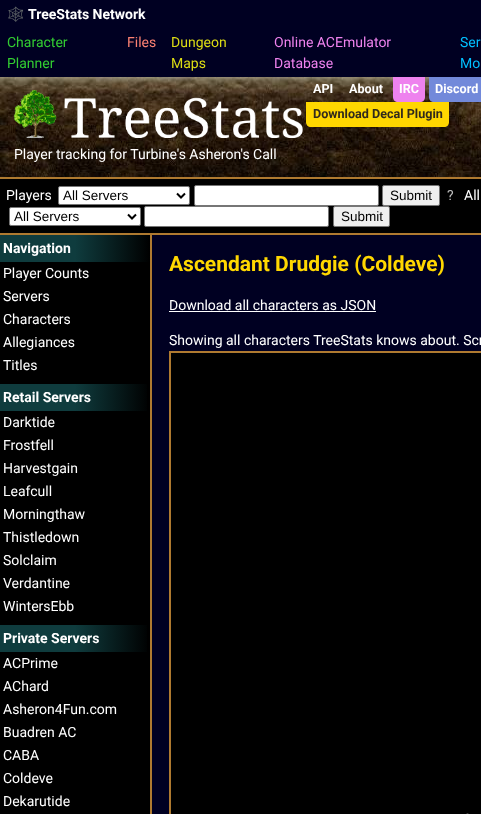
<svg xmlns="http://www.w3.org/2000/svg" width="481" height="814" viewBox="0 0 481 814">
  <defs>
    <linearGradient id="g1" gradientUnits="userSpaceOnUse" x1="0" y1="249" x2="150" y2="249"><stop offset="0" stop-color="rgb(15,60,62)"/><stop offset="0.5" stop-color="rgb(15,60,62)"/><stop offset="1" stop-color="rgb(0,0,0)"/></linearGradient>
    <linearGradient id="g2" gradientUnits="userSpaceOnUse" x1="0" y1="398" x2="150" y2="398"><stop offset="0" stop-color="rgb(15,60,62)"/><stop offset="0.5" stop-color="rgb(15,60,62)"/><stop offset="1" stop-color="rgb(0,0,0)"/></linearGradient>
    <linearGradient id="g3" gradientUnits="userSpaceOnUse" x1="0" y1="639" x2="150" y2="639"><stop offset="0" stop-color="rgb(15,60,62)"/><stop offset="0.5" stop-color="rgb(15,60,62)"/><stop offset="1" stop-color="rgb(0,0,0)"/></linearGradient>
  </defs>
  <rect width="100%" height="100%" fill="rgb(0,0,34)"/>
  <text x="7" y="19" font-family="Noto Color Emoji" font-size="14" fill="rgb(255,255,255)">🕸️</text>
  <text x="28" y="19" font-family="Roboto" font-size="14" font-weight="bold" fill="rgb(255,255,255)">TreeStats Network</text>
  <g font-family="Roboto" font-size="14" fill="rgb(50,205,50)">
    <text>
      <tspan x="7" y="47">Character</tspan>
      <tspan x="7" y="68">Planner</tspan>
    </text>
  </g>
  <text x="127" y="47" font-family="Roboto" font-size="14" fill="rgb(250,128,114)">Files</text>
  <g font-family="Roboto" font-size="14" fill="rgb(220,220,20)">
    <text>
      <tspan x="171" y="47">Dungeon</tspan>
      <tspan x="171" y="68">Maps</tspan>
    </text>
  </g>
  <g font-family="Roboto" font-size="14" fill="rgb(238,130,238)">
    <text>
      <tspan x="274" y="47">Online ACEmulator</tspan>
      <tspan x="274" y="68">Database</tspan>
    </text>
  </g>
  <g font-family="Roboto" font-size="14" fill="rgb(0,191,255)">
    <text>
      <tspan x="460" y="47">Ser</tspan>
      <tspan x="460" y="68">Mo</tspan>
    </text>
  </g>
  <image x="0" y="77" width="481" height="100" href="pic1.png"/>
  <rect x="0" y="177" width="481" height="2" fill="rgb(175,122,48)"/>
  <g font-family="Roboto" font-size="12.6" font-weight="bold" fill="rgb(255,255,255)">
    <text x="313" y="93">API</text>
    <text x="349" y="93">About</text>
  </g>
  <path d="M393 77H425V97C425 100 423 102 420 102H398C395 102 393 100 393 97Z" fill="rgb(238,130,238)"/>
  <text x="399" y="93" font-family="Roboto" font-size="12.6" font-weight="bold" fill="rgb(255,255,255)">IRC</text>
  <path d="M429 77H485V97C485 100 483 102 480 102H434C431 102 429 100 429 97Z" fill="rgb(114,137,218)"/>
  <text x="435" y="93" font-family="Roboto" font-size="12.6" font-weight="bold" fill="rgb(255,255,255)">Discord</text>
  <path d="M306 102H449V122C449 125 447 127 444 127H311C308 127 306 125 306 122Z" fill="rgb(255,215,0)"/>
  <text x="313" y="118" font-family="Roboto" font-size="12.6" font-weight="bold" fill="rgb(48,41,28)">Download Decal Plugin</text>
  <image x="14" y="90" width="289" height="48" href="pic2.png"/>
  <text x="14" y="159" font-family="Roboto" font-size="14" fill="rgb(255,255,255)">Player tracking for Turbine's Asheron's Call</text>
  <rect x="0" y="179" width="481" height="54" fill="rgb(0,0,0)"/>
  <rect x="0" y="233" width="481" height="2" fill="rgb(175,122,48)"/>
  <text x="6" y="200" font-family="Roboto" font-size="14" fill="rgb(255,255,255)">Players</text>
  <rect x="58.5" y="186.5" width="131" height="18" rx="1.5" fill="rgb(255,255,255)" stroke="rgb(118,118,118)"/>
  <path d="M177 193.5L181 197.5L185 193.5" fill="none" stroke="rgb(0,0,0)" stroke-width="2"/>
  <text x="63" y="200" font-family="Liberation Sans" font-size="13.5" fill="rgb(0,0,0)">All Servers</text>
  <rect x="194.5" y="185.5" width="184" height="20" rx="1.5" fill="rgb(255,255,255)" stroke="rgb(118,118,118)"/>
  <rect x="382.5" y="185.5" width="57" height="20" rx="1.5" fill="rgb(239,239,239)" stroke="rgb(118,118,118)"/>
  <text x="390" y="200" font-family="Liberation Sans" font-size="13.5" fill="rgb(0,0,0)">Submit</text>
  <text x="447" y="200" font-family="Roboto" font-size="14" fill="rgb(191,191,191)">?</text>
  <text x="464" y="200" font-family="Roboto" font-size="14" fill="rgb(255,255,255)">All</text>
  <rect x="9.5" y="207.5" width="131" height="18" rx="1.5" fill="rgb(255,255,255)" stroke="rgb(118,118,118)"/>
  <path d="M128 214.5L132 218.5L136 214.5" fill="none" stroke="rgb(0,0,0)" stroke-width="2"/>
  <text x="14" y="221" font-family="Liberation Sans" font-size="13.5" fill="rgb(0,0,0)">All Servers</text>
  <rect x="144.5" y="206.5" width="184" height="20" rx="1.5" fill="rgb(255,255,255)" stroke="rgb(118,118,118)"/>
  <rect x="333.5" y="206.5" width="56" height="20" rx="1.5" fill="rgb(239,239,239)" stroke="rgb(118,118,118)"/>
  <text x="341" y="221" font-family="Liberation Sans" font-size="13.5" fill="rgb(0,0,0)">Submit</text>
  <rect x="0" y="262" width="150" height="552" fill="rgb(0,0,0)"/>
  <rect x="150" y="235" width="2" height="579" fill="rgb(175,122,48)"/>
  <rect x="0" y="235" width="150" height="27" fill="url(#g1)"/>
  <text x="3" y="253" font-family="Roboto" font-size="14" font-weight="bold" fill="rgb(255,255,255)">Navigation</text>
  <g font-family="Roboto" font-size="14" fill="rgb(255,255,255)">
    <text>
      <tspan x="3" y="278">Player Counts</tspan>
      <tspan x="3" y="301">Servers</tspan>
      <tspan x="3" y="324">Characters</tspan>
      <tspan x="3" y="347">Allegiances</tspan>
      <tspan x="3" y="370">Titles</tspan>
    </text>
  </g>
  <rect x="0" y="384" width="147" height="27" fill="url(#g2)"/>
  <text x="3" y="402" font-family="Roboto" font-size="14" font-weight="bold" fill="rgb(255,255,255)">Retail Servers</text>
  <g font-family="Roboto" font-size="14" fill="rgb(255,255,255)">
    <text>
      <tspan x="3" y="427">Darktide</tspan>
      <tspan x="3" y="450">Frostfell</tspan>
      <tspan x="3" y="473">Harvestgain</tspan>
      <tspan x="3" y="496">Leafcull</tspan>
      <tspan x="3" y="519">Morningthaw</tspan>
      <tspan x="3" y="542">Thistledown</tspan>
      <tspan x="3" y="565">Solclaim</tspan>
      <tspan x="3" y="588">Verdantine</tspan>
      <tspan x="3" y="611">WintersEbb</tspan>
    </text>
  </g>
  <rect x="0" y="625" width="147" height="27" fill="url(#g3)"/>
  <text x="3" y="643" font-family="Roboto" font-size="14" font-weight="bold" fill="rgb(255,255,255)">Private Servers</text>
  <g font-family="Roboto" font-size="14" fill="rgb(255,255,255)">
    <text>
      <tspan x="3" y="668">ACPrime</tspan>
      <tspan x="3" y="691">AChard</tspan>
      <tspan x="3" y="714">Asheron4Fun.com</tspan>
      <tspan x="3" y="737">Buadren AC</tspan>
      <tspan x="3" y="760">CABA</tspan>
      <tspan x="3" y="783">Coldeve</tspan>
      <tspan x="3" y="806">Dekarutide</tspan>
    </text>
  </g>
  <text x="169" y="271" font-family="Roboto" font-size="21" font-weight="bold" fill="rgb(255,215,0)">Ascendant Drudgie (Coldeve)</text>
  <text x="169" y="310" font-family="Roboto" font-size="14" fill="rgb(255,255,255)">Download all characters as JSON</text>
  <rect x="169" y="311" width="207" height="1" fill="rgb(255,255,255)"/>
  <text x="169" y="345" font-family="Roboto" font-size="14" fill="rgb(255,255,255)">Showing all characters TreeStats knows about. Scr</text>
  <rect x="170" y="352" width="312" height="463" fill="rgb(0,0,0)" stroke="rgb(175,122,48)" stroke-width="2"/>
  <image x="466" y="813" width="3" height="1" href="pic3.png"/>
</svg>
